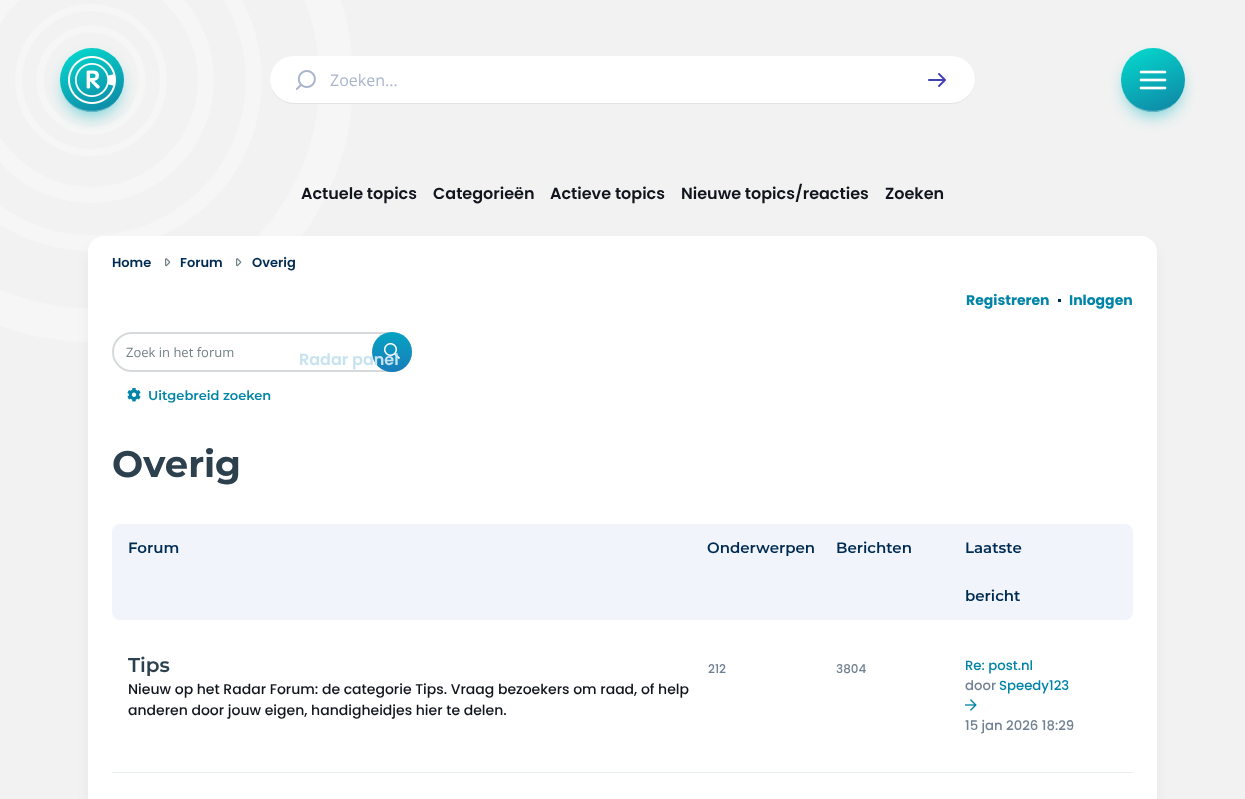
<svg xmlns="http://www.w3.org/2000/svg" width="1245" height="799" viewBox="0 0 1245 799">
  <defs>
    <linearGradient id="g1" gradientUnits="userSpaceOnUse" x1="75" y1="41" x2="109" y2="119"><stop offset="0" stop-color="rgb(4,221,207)"/><stop offset="0.97" stop-color="rgb(15,132,164)"/></linearGradient>
    <linearGradient id="g2" gradientUnits="userSpaceOnUse" x1="1136" y1="41" x2="1170" y2="119"><stop offset="0" stop-color="rgb(4,221,207)"/><stop offset="0.97" stop-color="rgb(15,132,164)"/></linearGradient>
    <linearGradient id="g3" gradientUnits="userSpaceOnUse" x1="392" y1="332" x2="392" y2="412"><stop offset="0" stop-color="rgb(5,163,194)"/><stop offset="0.5" stop-color="rgb(25,125,187)"/><stop offset="0.75" stop-color="rgb(19,95,142)"/><stop offset="1" stop-color="rgb(13,65,97)"/></linearGradient>
  </defs>
  <rect width="100%" height="100%" fill="rgb(242,242,242)"/>
  <image x="0" y="0" width="353" height="342" href="pic1.png"/>
  <rect x="64" y="60" width="56" height="56" rx="28" fill="rgba(32,190,199,0.6)" filter="blur(8px)"/>
  <circle cx="92" cy="80" r="32" fill="url(#g1)"/>
  <path d="M60 80C60 86 62 92 65 98C83 124 124 111 124 80C123 121 61 121 60 80Z" fill="rgb(111,185,197)"/>
  <image x="68" y="56" width="48" height="48" href="pic2.png"/>
  <rect x="270" y="56" width="705" height="48" rx="24" fill="rgb(255,255,255)"/>
  <path d="M270 79V80C270 93 281 104 294 104H951C964 104 975 93 975 80V79C975 92 964 103 951 103H294C281 103 270 92 270 79Z" fill="rgba(16,24,40,0.12)"/>
  <image x="295" y="70" width="21" height="20" href="pic3.png"/>
  <text x="330" y="86" font-family="Open Sans" font-size="16" fill="rgb(169,181,205)">Zoeken...</text>
  <image x="928" y="73" width="18" height="14" href="pic4.png"/>
  <rect x="1125" y="60" width="56" height="56" rx="28" fill="rgba(32,190,199,0.6)" filter="blur(8px)"/>
  <circle cx="1153" cy="80" r="32" fill="url(#g2)"/>
  <path d="M1121 80C1121 86 1123 92 1126 98C1144 124 1185 111 1185 80C1184 121 1122 121 1121 80Z" fill="rgb(111,185,197)"/>
  <image x="1139" y="70" width="28" height="20" href="pic5.png"/>
  <rect x="92" y="248" width="1061" height="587" rx="12" fill="rgba(16,24,40,0.08)" filter="blur(8px)"/>
  <rect x="88" y="236" width="1069" height="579" rx="16" fill="rgb(255,255,255)"/>
  <rect x="113" y="333" width="298" height="38" rx="19" fill="none" stroke="rgb(214,218,221)" stroke-width="2"/>
  <circle cx="392" cy="352" r="20" fill="url(#g3)"/>
  <image x="384" y="343" width="16" height="16" href="pic7.png"/>
  <text x="299" y="365" font-family="Poppins" font-size="16" font-weight="600" fill="rgb(199,227,239)">Radar panel</text>
  <g font-family="Poppins" font-size="16" font-weight="600" fill="rgb(16,20,28)">
    <text x="301" y="199">Actuele topics</text>
    <text x="433" y="199">Categorieën</text>
    <text x="550" y="199">Actieve topics</text>
    <text x="681" y="199">Nieuwe topics/reacties</text>
    <text x="885" y="199">Zoeken</text>
  </g>
  <text x="112" y="267" font-family="Poppins" font-size="13" font-weight="600" fill="rgb(0,44,83)">Home</text>
  <image x="165" y="258" width="6" height="9" href="pic6.png"/>
  <text x="180" y="267" font-family="Poppins" font-size="13" font-weight="600" fill="rgb(0,44,83)">Forum</text>
  <image x="236" y="258" width="6" height="9" href="pic6.png"/>
  <text x="252" y="267" font-family="Poppins" font-size="13" font-weight="600" fill="rgb(0,44,83)">Overig</text>
  <text x="966" y="305" font-family="Poppins" font-size="14" font-weight="bold" fill="rgb(0,132,167)">Registreren</text>
  <rect x="1058" y="299" width="3" height="3" fill="rgb(0,44,83)"/>
  <text x="1069" y="305" font-family="Poppins" font-size="14" font-weight="bold" fill="rgb(0,132,167)">Inloggen</text>
  <text x="126" y="357" font-family="Open Sans" font-size="13" fill="rgb(114,130,135)">Zoek in het forum</text>
  <image x="127" y="388" width="14" height="14" href="pic8.png"/>
  <text x="148" y="400" font-family="Montserrat" font-size="13" font-weight="600" fill="rgb(0,132,167)">Uitgebreid zoeken</text>
  <text x="112" y="477" font-family="Montserrat" font-size="37" font-weight="bold" fill="rgb(45,64,78)">Overig</text>
  <rect x="112" y="524" width="1021" height="96" rx="8" fill="rgb(241,244,251)"/>
  <g font-family="Montserrat" font-size="15" font-weight="600" fill="rgb(0,44,83)">
    <text x="128" y="553">Forum</text>
    <text x="707" y="553">Onderwerpen</text>
    <text x="836" y="553">Berichten</text>
    <text x="965" y="553">Laatste</text>
    <text x="965" y="601">bericht</text>
  </g>
  <rect x="112" y="772" width="1021" height="1" fill="rgb(234,239,241)"/>
  <text x="128" y="672" font-family="Montserrat" font-size="20" font-weight="600" fill="rgb(45,64,78)">Tips</text>
  <g font-family="Poppins" font-size="14" font-weight="500" fill="rgb(16,20,28)">
    <text>
      <tspan x="128" y="694">Nieuw op het Radar Forum: de categorie Tips. Vraag bezoekers om raad, of help</tspan>
      <tspan x="128" y="715">anderen door jouw eigen, handigheidjes hier te delen.</tspan>
    </text>
  </g>
  <g font-family="Poppins" font-size="12" font-weight="500" fill="rgb(113,128,146)">
    <text x="708" y="673">212</text>
    <text x="836" y="673">3804</text>
  </g>
  <text x="965" y="670" font-family="Poppins" font-size="13.25" font-weight="500" fill="rgb(0,132,167)">Re: post.nl</text>
  <text x="965" y="690" font-family="Poppins" font-size="13.25" font-weight="500" fill="rgb(113,128,146)">door</text>
  <text x="999" y="690" font-family="Poppins" font-size="13.25" font-weight="500" fill="rgb(0,132,167)">Speedy123</text>
  <image x="965" y="699" width="12" height="12" href="pic9.png"/>
  <text x="965" y="730" font-family="Poppins" font-size="13.25" font-weight="500" fill="rgb(113,128,146)">15 jan 2026 18:29</text>
</svg>
